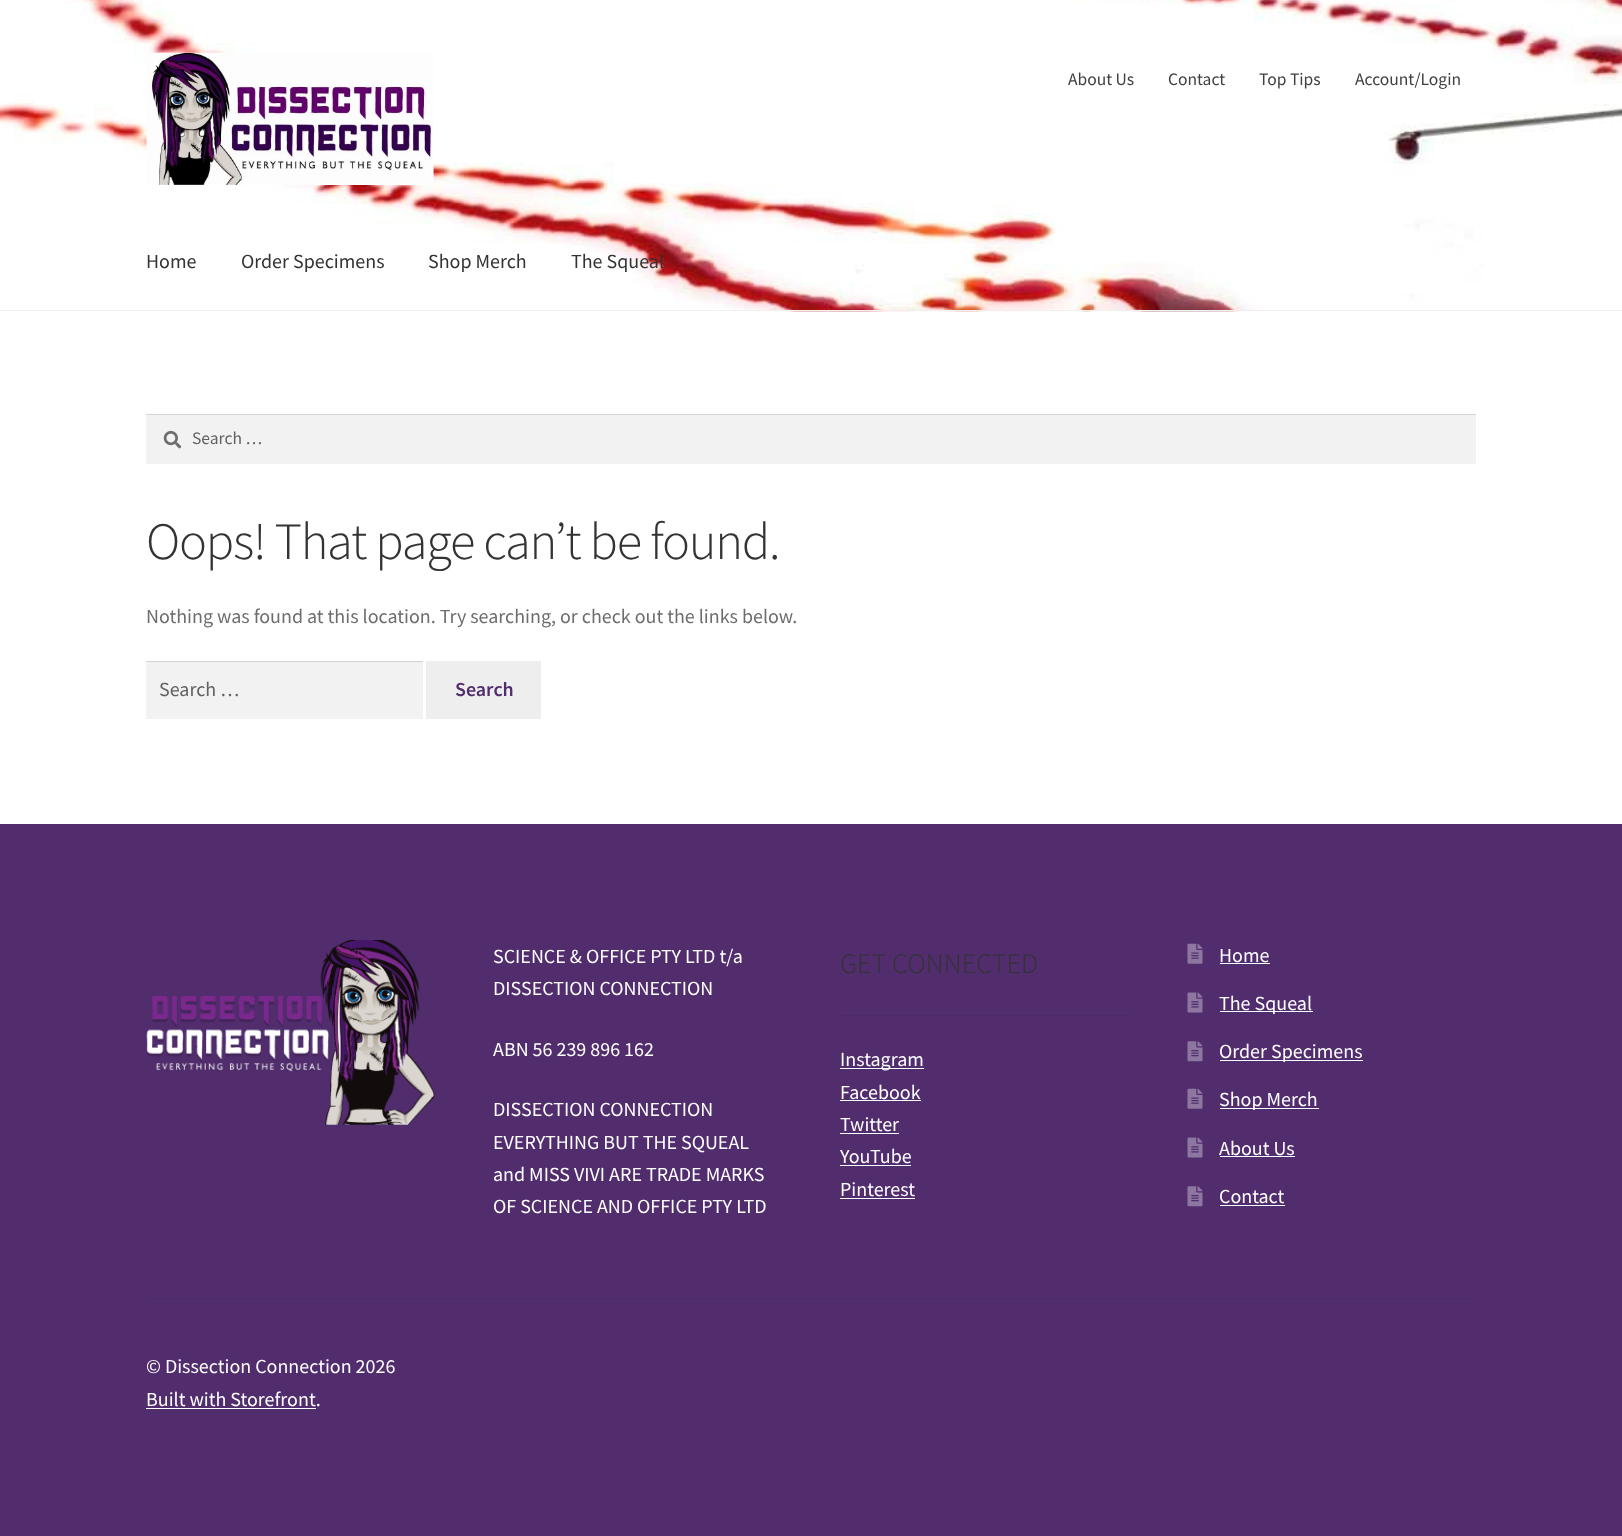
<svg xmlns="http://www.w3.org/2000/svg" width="1622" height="1536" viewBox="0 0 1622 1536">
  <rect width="100%" height="100%" fill="rgb(255,255,255)"/>
  <image x="0" y="0" width="1622" height="312" href="pic1.png"/>
  <rect x="0" y="310" width="1622" height="1" fill="rgb(240,240,240)"/>
  <image x="146" y="52" width="288" height="133" href="pic2.png"/>
  <g font-family="Source Sans Pro" font-size="17.5" fill="rgb(64,64,64)">
    <text x="1068" y="85">About Us</text>
    <text x="1168" y="85">Contact</text>
    <text x="1259" y="85">Top Tips</text>
    <text x="1355" y="85">Account/Login</text>
  </g>
  <g font-family="Source Sans Pro" font-size="20" fill="rgb(51,51,51)">
    <text x="146" y="268">Home</text>
    <text x="241" y="268">Order Specimens</text>
    <text x="428" y="268">Shop Merch</text>
    <text x="571" y="268">The Squeal</text>
  </g>
  <rect x="146" y="415" width="1330" height="49" fill="rgb(242,242,242)"/>
  <image x="163" y="430" width="19" height="19" href="pic3.png"/>
  <rect x="146" y="414" width="1330" height="1" fill="rgb(212,212,212)"/>
  <text x="192" y="444" font-family="Source Sans Pro" font-size="17.5" fill="rgb(97,97,97)">Search …</text>
  <text x="146" y="559" font-family="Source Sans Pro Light" font-size="52.4" font-weight="300" letter-spacing="-1.25" fill="rgb(51,51,51)">Oops! That page can’t be found.</text>
  <text x="146" y="623" font-family="Source Sans Pro" font-size="20" fill="rgb(109,109,109)">Nothing was found at this location. Try searching, or check out the links below.</text>
  <rect x="146" y="662" width="277" height="57" fill="rgb(242,242,242)"/>
  <rect x="146" y="661" width="277" height="1" fill="rgb(212,212,212)"/>
  <text x="159" y="696" font-family="Source Sans Pro" font-size="20" fill="rgb(97,97,97)">Search …</text>
  <rect x="426" y="661" width="115" height="58" fill="rgb(238,238,238)"/>
  <text x="455" y="696" font-family="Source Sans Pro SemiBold" font-size="20" font-weight="600" fill="rgb(81,45,109)">Search</text>
  <rect x="0" y="824" width="1622" height="712" fill="rgb(81,45,109)"/>
  <rect x="146" y="1298" width="1330" height="1" fill="rgb(77,43,104)"/>
  <image x="146" y="940" width="289" height="185" href="pic4.png"/>
  <g font-family="Source Sans Pro" font-size="20" fill="rgb(255,255,255)">
    <text>
      <tspan x="493" y="963">SCIENCE &amp; OFFICE PTY LTD t/a</tspan>
      <tspan x="493" y="995">DISSECTION CONNECTION</tspan>
    </text>
    <text x="493" y="1056">ABN 56 239 896 162</text>
    <text>
      <tspan x="493" y="1116">DISSECTION CONNECTION</tspan>
      <tspan x="493" y="1149">EVERYTHING BUT THE SQUEAL</tspan>
      <tspan x="493" y="1181">and MISS VIVI ARE TRADE MARKS</tspan>
      <tspan x="493" y="1213">OF SCIENCE AND OFFICE PTY LTD</tspan>
    </text>
  </g>
  <rect x="840" y="1015" width="289" height="1" fill="rgb(77,43,104)"/>
  <text x="840" y="973" font-family="Source Sans Pro Light" font-size="28.25" font-weight="300" fill="rgb(51,51,51)">GET CONNECTED</text>
  <rect x="840" y="1068" width="84" height="1" fill="rgb(255,255,255)"/>
  <g font-family="Source Sans Pro" font-size="20" fill="rgb(255,255,255)">
    <text>
      <tspan x="840" y="1066">Instagram</tspan>
      <tspan x="840" y="1099">Facebook</tspan>
    </text>
  </g>
  <rect x="840" y="1100" width="81" height="1" fill="rgb(255,255,255)"/>
  <text x="840" y="1131" font-family="Source Sans Pro" font-size="20" fill="rgb(255,255,255)">Twitter</text>
  <rect x="840" y="1133" width="59" height="1" fill="rgb(255,255,255)"/>
  <text x="840" y="1163" font-family="Source Sans Pro" font-size="20" fill="rgb(255,255,255)">YouTube</text>
  <rect x="840" y="1165" width="71" height="1" fill="rgb(255,255,255)"/>
  <text x="840" y="1196" font-family="Source Sans Pro" font-size="20" fill="rgb(255,255,255)">Pinterest</text>
  <rect x="840" y="1198" width="75" height="1" fill="rgb(255,255,255)"/>
  <image x="1187" y="943" width="16" height="21" href="pic5.png"/>
  <text x="1219" y="962" font-family="Source Sans Pro" font-size="20" fill="rgb(255,255,255)">Home</text>
  <rect x="1220" y="963" width="50" height="1" fill="rgb(255,255,255)"/>
  <image x="1187" y="992" width="16" height="21" href="pic6.png"/>
  <rect x="1220" y="1011" width="93" height="1" fill="rgb(255,255,255)"/>
  <text x="1219" y="1010" font-family="Source Sans Pro" font-size="20" fill="rgb(255,255,255)">The Squeal</text>
  <image x="1187" y="1041" width="16" height="21" href="pic7.png"/>
  <rect x="1220" y="1060" width="143" height="1" fill="rgb(255,255,255)"/>
  <text x="1219" y="1058" font-family="Source Sans Pro" font-size="20" fill="rgb(255,255,255)">Order Specimens</text>
  <image x="1187" y="1088" width="16" height="21" href="pic5.png"/>
  <rect x="1220" y="1108" width="99" height="1" fill="rgb(255,255,255)"/>
  <text x="1219" y="1106" font-family="Source Sans Pro" font-size="20" fill="rgb(255,255,255)">Shop Merch</text>
  <image x="1187" y="1137" width="16" height="21" href="pic6.png"/>
  <text x="1219" y="1155" font-family="Source Sans Pro" font-size="20" fill="rgb(255,255,255)">About Us</text>
  <rect x="1220" y="1156" width="75" height="1" fill="rgb(255,255,255)"/>
  <image x="1187" y="1186" width="16" height="21" href="pic7.png"/>
  <text x="1219" y="1203" font-family="Source Sans Pro" font-size="20" fill="rgb(255,255,255)">Contact</text>
  <rect x="1220" y="1205" width="65" height="1" fill="rgb(255,255,255)"/>
  <g font-family="Source Sans Pro" font-size="20" fill="rgb(255,255,255)">
    <text>
      <tspan x="146" y="1373">© Dissection Connection 2026</tspan>
      <tspan x="146" y="1406">Built with Storefront.</tspan>
    </text>
  </g>
  <rect x="146" y="1408" width="170" height="1" fill="rgb(255,255,255)"/>
</svg>
